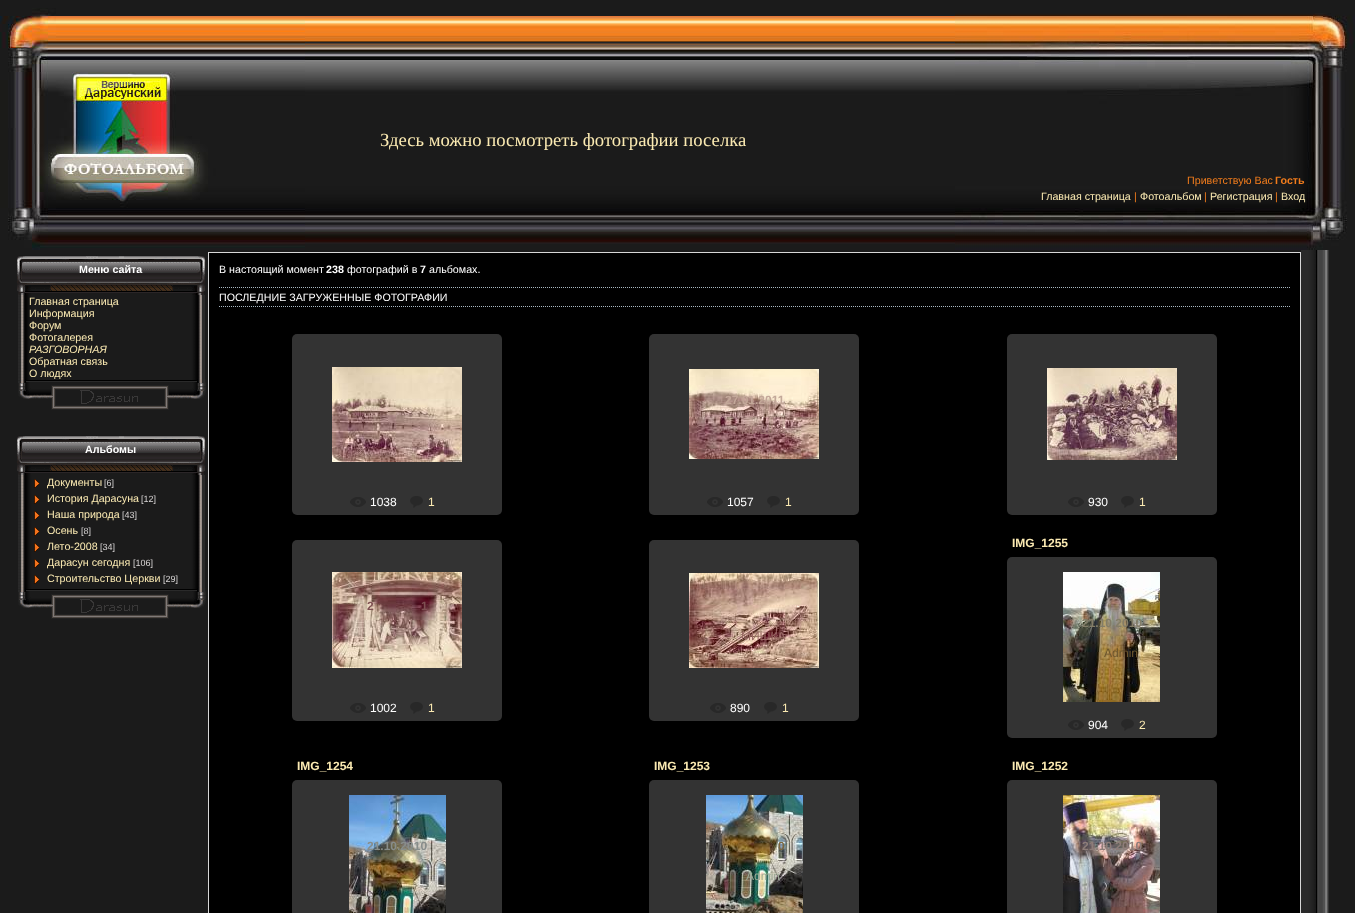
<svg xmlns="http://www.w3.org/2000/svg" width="1355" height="913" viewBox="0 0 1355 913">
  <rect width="100%" height="100%" fill="rgb(27,27,27)"/>
  <image x="305" y="16" width="650" height="228" href="pic1.png"/>
  <image x="0" y="8" width="305" height="242" href="pic2.png"/>
  <image x="955" y="13" width="400" height="237" href="pic3.png"/>
  <text x="380" y="146" font-family="Liberation Serif" font-size="18.7" fill="rgb(251,234,178)">Здесь можно посмотреть фотографии поселка</text>
  <text x="1187" y="184" font-family="Liberation Sans" font-size="10.7" fill="rgb(241,124,28)">Приветствую Вас</text>
  <text x="1275" y="184" font-family="Liberation Sans" font-size="10.7" font-weight="bold" fill="rgb(241,124,28)">Гость</text>
  <text x="1041" y="200" font-family="Liberation Sans" font-size="10.7" fill="rgb(251,234,178)">Главная страница</text>
  <text x="1134" y="200" font-family="Liberation Sans" font-size="10.7" fill="rgb(241,124,28)">|</text>
  <text x="1140" y="200" font-family="Liberation Sans" font-size="10.7" fill="rgb(251,234,178)">Фотоальбом</text>
  <text x="1204" y="200" font-family="Liberation Sans" font-size="10.7" fill="rgb(241,124,28)">|</text>
  <text x="1210" y="200" font-family="Liberation Sans" font-size="10.7" fill="rgb(251,234,178)">Регистрация</text>
  <text x="1275" y="200" font-family="Liberation Sans" font-size="10.7" fill="rgb(241,124,28)">|</text>
  <text x="1281" y="200" font-family="Liberation Sans" font-size="10.7" fill="rgb(251,234,178)">Вход</text>
  <image x="14" y="250" width="194" height="168" href="pic4.png"/>
  <image x="17" y="250" width="189" height="45" href="pic5.png"/>
  <text x="79" y="273" font-family="Liberation Sans" font-size="10.7" font-weight="bold" fill="rgb(255,255,255)">Меню сайта</text>
  <g font-family="Liberation Sans" font-size="10.7" fill="rgb(251,234,178)">
    <text>
      <tspan x="29" y="305">Главная страница</tspan>
      <tspan x="29" y="317">Информация</tspan>
      <tspan x="29" y="329">Форум</tspan>
      <tspan x="29" y="341">Фотогалерея</tspan>
    </text>
  </g>
  <text x="29" y="353" font-family="Liberation Sans" font-size="10.7" font-style="italic" fill="rgb(251,234,178)">РАЗГОВОРНАЯ</text>
  <g font-family="Liberation Sans" font-size="10.7" fill="rgb(251,234,178)">
    <text>
      <tspan x="29" y="365">Обратная связь</tspan>
      <tspan x="29" y="377">О людях</tspan>
    </text>
  </g>
  <image x="18" y="379" width="188" height="39" href="pic6.png"/>
  <image x="14" y="430" width="194" height="197" href="pic7.png"/>
  <image x="17" y="430" width="189" height="45" href="pic5.png"/>
  <text x="85" y="453" font-family="Liberation Sans" font-size="10.7" font-weight="bold" fill="rgb(255,255,255)">Альбомы</text>
  <image x="34" y="479" width="6" height="9" href="pic8.png"/>
  <text x="47" y="486" font-family="Liberation Sans" font-size="10.7" fill="rgb(251,234,178)">Документы</text>
  <text x="104" y="486" font-family="Liberation Sans" font-size="9" fill="rgb(216,213,213)">[6]</text>
  <image x="34" y="495" width="6" height="9" href="pic8.png"/>
  <text x="47" y="502" font-family="Liberation Sans" font-size="10.7" fill="rgb(251,234,178)">История Дарасуна</text>
  <text x="141" y="502" font-family="Liberation Sans" font-size="9" fill="rgb(216,213,213)">[12]</text>
  <image x="34" y="511" width="6" height="9" href="pic8.png"/>
  <text x="47" y="518" font-family="Liberation Sans" font-size="10.7" fill="rgb(251,234,178)">Наша природа</text>
  <text x="122" y="518" font-family="Liberation Sans" font-size="9" fill="rgb(216,213,213)">[43]</text>
  <image x="34" y="527" width="6" height="9" href="pic8.png"/>
  <text x="47" y="534" font-family="Liberation Sans" font-size="10.7" fill="rgb(251,234,178)">Осень</text>
  <text x="81" y="534" font-family="Liberation Sans" font-size="9" fill="rgb(216,213,213)">[8]</text>
  <image x="34" y="543" width="6" height="9" href="pic8.png"/>
  <text x="47" y="550" font-family="Liberation Sans" font-size="10.7" fill="rgb(251,234,178)">Лето-2008</text>
  <text x="100" y="550" font-family="Liberation Sans" font-size="9" fill="rgb(216,213,213)">[34]</text>
  <image x="34" y="559" width="6" height="9" href="pic8.png"/>
  <text x="47" y="566" font-family="Liberation Sans" font-size="10.7" fill="rgb(251,234,178)">Дарасун сегодня</text>
  <text x="133" y="566" font-family="Liberation Sans" font-size="9" fill="rgb(216,213,213)">[106]</text>
  <image x="34" y="575" width="6" height="9" href="pic8.png"/>
  <text x="47" y="582" font-family="Liberation Sans" font-size="10.7" fill="rgb(251,234,178)">Строительство Церкви</text>
  <text x="163" y="582" font-family="Liberation Sans" font-size="9" fill="rgb(216,213,213)">[29]</text>
  <image x="18" y="588" width="188" height="39" href="pic6.png"/>
  <rect x="208.5" y="252.5" width="1092" height="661" fill="none" stroke="rgb(215,215,215)"/>
  <rect x="209" y="253" width="1091" height="660" fill="rgb(0,0,0)"/>
  <text x="219" y="273" font-family="Liberation Sans" font-size="10.7" fill="rgb(255,255,255)">В настоящий момент</text>
  <text x="326" y="273" font-family="Liberation Sans" font-size="10.7" font-weight="bold" fill="rgb(255,255,255)">238</text>
  <text x="347" y="273" font-family="Liberation Sans" font-size="10.7" fill="rgb(255,255,255)">фотографий в</text>
  <text x="420" y="273" font-family="Liberation Sans" font-size="10.7" font-weight="bold" fill="rgb(255,255,255)">7</text>
  <text x="429" y="273" font-family="Liberation Sans" font-size="10.7" fill="rgb(255,255,255)">альбомах.</text>
  <path d="M219 287.5H1290" fill="none" stroke="rgb(169,184,194)" stroke-dasharray="1 1"/>
  <path d="M219 306.5H1290" fill="none" stroke="rgb(169,184,194)" stroke-dasharray="1 1"/>
  <text x="219" y="301" font-family="Liberation Sans" font-size="10.7" fill="rgb(255,255,255)">ПОСЛЕДНИЕ ЗАГРУЖЕННЫЕ ФОТОГРАФИИ</text>
  <image x="292" y="334" width="210" height="181" href="pic9.png"/>
  <image x="332" y="367" width="130" height="95" href="pic10.png"/>
  <text x="381" y="404" font-family="Liberation Sans" font-size="12" font-weight="bold" fill="rgb(226,207,182)">.</text>
  <image x="350" y="497" width="16" height="10" href="pic11.png"/>
  <text x="370" y="506" font-family="Liberation Sans" font-size="12" fill="rgb(255,255,255)">1038</text>
  <image x="410" y="496" width="13" height="12" href="pic12.png"/>
  <text x="428" y="506" font-family="Liberation Sans" font-size="12" fill="rgb(251,234,178)">1</text>
  <image x="649" y="334" width="210" height="181" href="pic9.png"/>
  <image x="689" y="369" width="130" height="90" href="pic13.png"/>
  <text x="725" y="404" font-family="Liberation Sans" font-size="12" font-weight="bold" fill="rgb(195,168,153)">27.01.2011</text>
  <text x="741" y="434" font-family="Liberation Sans" font-size="12" fill="rgb(156,116,114)">МИШКА</text>
  <image x="707" y="497" width="16" height="10" href="pic11.png"/>
  <text x="727" y="506" font-family="Liberation Sans" font-size="12" fill="rgb(255,255,255)">1057</text>
  <image x="767" y="496" width="13" height="12" href="pic12.png"/>
  <text x="785" y="506" font-family="Liberation Sans" font-size="12" fill="rgb(251,234,178)">1</text>
  <image x="1007" y="334" width="210" height="181" href="pic9.png"/>
  <image x="1047" y="368" width="130" height="92" href="pic14.png"/>
  <text x="1082" y="404" font-family="Liberation Sans" font-size="12" font-weight="bold" fill="rgb(144,113,113)">27.01.2011</text>
  <text x="1098" y="434" font-family="Liberation Sans" font-size="12" fill="rgb(166,137,134)">МИШКА</text>
  <image x="1068" y="497" width="16" height="10" href="pic11.png"/>
  <text x="1088" y="506" font-family="Liberation Sans" font-size="12" fill="rgb(255,255,255)">930</text>
  <image x="1121" y="496" width="13" height="12" href="pic12.png"/>
  <text x="1139" y="506" font-family="Liberation Sans" font-size="12" fill="rgb(251,234,178)">1</text>
  <image x="292" y="540" width="210" height="181" href="pic15.png"/>
  <image x="332" y="572" width="130" height="96" href="pic16.png"/>
  <g font-family="Liberation Sans" font-size="12" font-weight="bold" fill="rgb(126,80,82)">
    <text x="367" y="610">2</text>
    <text x="421" y="610">1</text>
  </g>
  <image x="350" y="703" width="16" height="10" href="pic11.png"/>
  <text x="370" y="712" font-family="Liberation Sans" font-size="12" fill="rgb(255,255,255)">1002</text>
  <image x="410" y="702" width="13" height="12" href="pic12.png"/>
  <text x="428" y="712" font-family="Liberation Sans" font-size="12" fill="rgb(251,234,178)">1</text>
  <image x="649" y="540" width="210" height="181" href="pic9.png"/>
  <image x="689" y="573" width="130" height="95" href="pic17.png"/>
  <text x="741" y="640" font-family="Liberation Sans" font-size="12" fill="rgb(153,106,100)">МИШКА</text>
  <image x="710" y="703" width="16" height="10" href="pic11.png"/>
  <text x="730" y="712" font-family="Liberation Sans" font-size="12" fill="rgb(255,255,255)">890</text>
  <image x="764" y="702" width="13" height="12" href="pic12.png"/>
  <text x="782" y="712" font-family="Liberation Sans" font-size="12" fill="rgb(251,234,178)">1</text>
  <text x="1012" y="547" font-family="Liberation Sans" font-size="12" font-weight="bold" fill="rgb(251,234,178)">IMG_1255</text>
  <image x="1007" y="557" width="210" height="181" href="pic9.png"/>
  <image x="1063" y="572" width="97" height="130" href="pic18.png"/>
  <text x="1082" y="627" font-family="Liberation Sans" font-size="12" font-weight="bold" fill="rgb(131,125,104)">21.10.2010</text>
  <text x="1104" y="657" font-family="Liberation Sans" font-size="12" fill="rgb(108,85,46)">Admin</text>
  <image x="1068" y="720" width="16" height="10" href="pic11.png"/>
  <text x="1088" y="729" font-family="Liberation Sans" font-size="12" fill="rgb(255,255,255)">904</text>
  <image x="1121" y="719" width="13" height="12" href="pic12.png"/>
  <text x="1139" y="729" font-family="Liberation Sans" font-size="12" fill="rgb(251,234,178)">2</text>
  <text x="297" y="770" font-family="Liberation Sans" font-size="12" font-weight="bold" fill="rgb(251,234,178)">IMG_1254</text>
  <image x="292" y="780" width="210" height="133" href="pic19.png"/>
  <image x="349" y="795" width="97" height="118" href="pic20.png"/>
  <text x="367" y="850" font-family="Liberation Sans" font-size="12" font-weight="bold" fill="rgb(135,141,139)">21.10.2010</text>
  <text x="654" y="770" font-family="Liberation Sans" font-size="12" font-weight="bold" fill="rgb(251,234,178)">IMG_1253</text>
  <image x="649" y="780" width="210" height="133" href="pic19.png"/>
  <image x="706" y="795" width="97" height="118" href="pic21.png"/>
  <text x="778" y="850" font-family="Liberation Sans" font-size="12" font-weight="bold" fill="rgb(123,102,63)">0</text>
  <text x="746" y="880" font-family="Liberation Sans" font-size="12" fill="rgb(157,170,150)">Admin</text>
  <text x="1012" y="770" font-family="Liberation Sans" font-size="12" font-weight="bold" fill="rgb(251,234,178)">IMG_1252</text>
  <image x="1007" y="780" width="210" height="133" href="pic19.png"/>
  <image x="1063" y="795" width="97" height="118" href="pic22.png"/>
  <text x="1082" y="850" font-family="Liberation Sans" font-size="12" font-weight="bold" fill="rgb(142,125,121)">21.10.2010</text>
  <image x="1301" y="250" width="28" height="663" href="pic23.png"/>
</svg>
